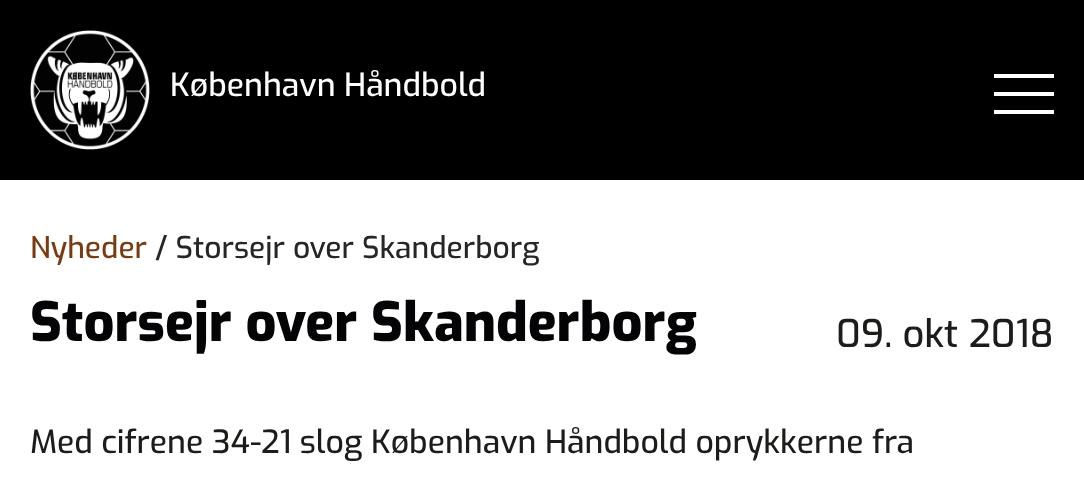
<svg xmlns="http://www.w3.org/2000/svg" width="1084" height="480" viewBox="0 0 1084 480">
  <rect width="100%" height="100%" fill="rgb(255,255,255)"/>
  <rect x="0" y="0" width="1084" height="180" fill="rgb(0,0,0)"/>
  <image x="30" y="30" width="120" height="120" href="pic1.png"/>
  <text x="170" y="96" font-family="Exo" font-size="32" font-weight="500" fill="rgb(255,255,255)">København Håndbold</text>
  <rect x="994" y="74" width="60" height="4" fill="rgb(255,255,255)"/>
  <rect x="994" y="92" width="60" height="4" fill="rgb(255,255,255)"/>
  <rect x="994" y="110" width="60" height="4" fill="rgb(255,255,255)"/>
  <text x="30" y="258" font-family="Exo" font-size="30" font-weight="500" fill="rgb(121,59,15)">Nyheder</text>
  <text x="155" y="258" font-family="Exo" font-size="30" font-weight="500" fill="rgb(38,38,38)">/ Storsejr over Skanderborg</text>
  <text x="30" y="341" font-family="Exo" font-size="54" font-weight="800" fill="rgb(4,4,6)">Storsejr over Skanderborg</text>
  <text x="836" y="347" font-family="Exo" font-size="38" font-weight="500" fill="rgb(29,28,26)">09. okt 2018</text>
  <text x="30" y="453" font-family="Exo" font-size="32" font-weight="500" fill="rgb(29,28,26)">Med cifrene 34-21 slog København Håndbold oprykkerne fra</text>
</svg>
